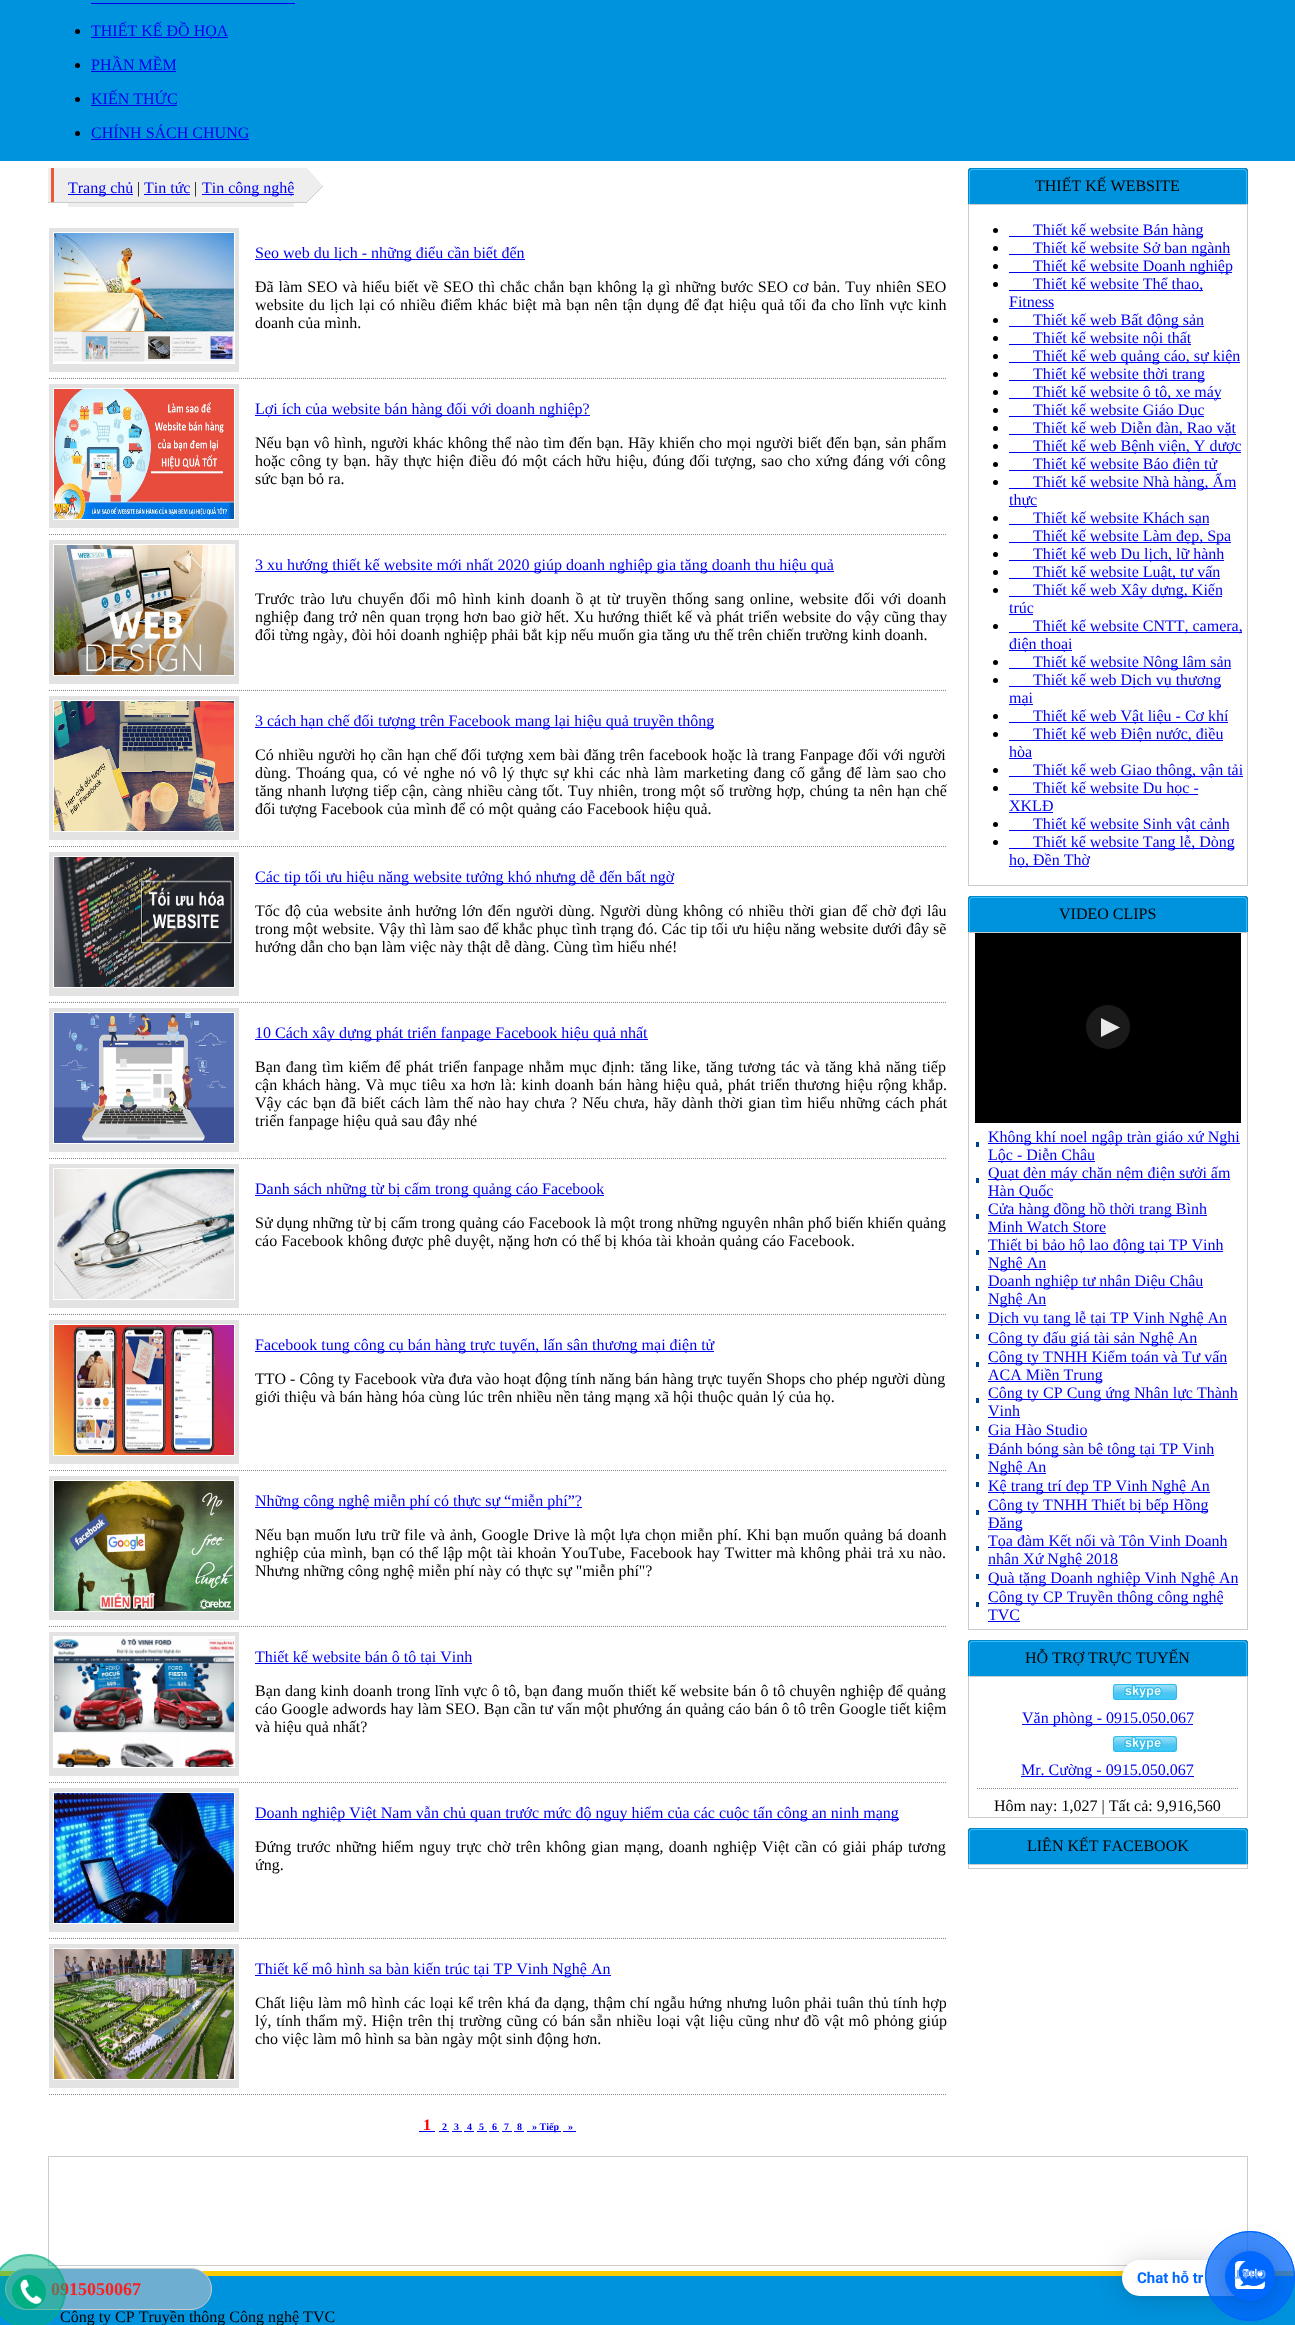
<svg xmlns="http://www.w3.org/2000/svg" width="1295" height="2325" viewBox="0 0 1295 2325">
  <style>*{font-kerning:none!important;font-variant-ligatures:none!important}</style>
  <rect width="100%" height="100%" fill="rgb(255,255,255)"/>
  <rect x="0" y="0" width="1295" height="161" fill="rgb(0,147,221)"/>
  <rect x="91" y="3" width="204" height="1" fill="rgb(0,0,238)"/>
  <circle cx="77.5" cy="31.5" r="2.5" fill="rgb(0,0,0)"/>
  <rect x="91" y="37" width="137" height="1" fill="rgb(0,0,238)"/>
  <text x="91" y="36" font-family="Liberation Serif" font-size="16" fill="rgb(0,0,238)">THIẾT KẾ ĐỒ HỌA</text>
  <circle cx="77.5" cy="65.5" r="2.5" fill="rgb(0,0,0)"/>
  <text x="91" y="70" font-family="Liberation Serif" font-size="16" fill="rgb(0,0,238)">PHẦN MỀM</text>
  <rect x="91" y="71" width="85" height="1" fill="rgb(0,0,238)"/>
  <circle cx="77.5" cy="99.5" r="2.5" fill="rgb(0,0,0)"/>
  <text x="91" y="104" font-family="Liberation Serif" font-size="16" fill="rgb(0,0,238)">KIẾN THỨC</text>
  <rect x="91" y="105" width="86" height="1" fill="rgb(0,0,238)"/>
  <circle cx="77.5" cy="133.5" r="2.5" fill="rgb(0,0,0)"/>
  <text x="91" y="138" font-family="Liberation Serif" font-size="16" fill="rgb(0,0,238)">CHÍNH SÁCH CHUNG</text>
  <rect x="91" y="139" width="158" height="1" fill="rgb(0,0,238)"/>
  <image x="48" y="168" width="20" height="35" href="pic1.png"/>
  <image x="68" y="168" width="226" height="39" href="pic2.png"/>
  <rect x="68" y="194" width="65" height="1" fill="rgb(0,0,238)"/>
  <text x="68" y="193" font-family="Liberation Serif" font-size="16" fill="rgb(0,0,238)">Trang chủ</text>
  <text x="137" y="193" font-family="Liberation Serif" font-size="16" fill="rgb(0,0,0)">|</text>
  <text x="144" y="193" font-family="Liberation Serif" font-size="16" fill="rgb(0,0,238)">Tin tức</text>
  <rect x="144" y="194" width="46" height="1" fill="rgb(0,0,238)"/>
  <text x="194" y="193" font-family="Liberation Serif" font-size="16" fill="rgb(0,0,0)">|</text>
  <rect x="202" y="194" width="92" height="1" fill="rgb(0,0,238)"/>
  <text x="202" y="193" font-family="Liberation Serif" font-size="16" fill="rgb(0,0,238)">Tin công nghệ</text>
  <image x="294" y="168" width="29" height="35" href="pic3.png"/>
  <rect x="49" y="228" width="190" height="144" fill="rgb(227,227,227)"/>
  <rect x="53.5" y="232.5" width="181" height="131" fill="none" stroke="rgb(255,255,255)"/>
  <image x="54" y="233" width="180" height="130" href="pic4.png"/>
  <rect x="255" y="259" width="270" height="1" fill="rgb(0,0,238)"/>
  <text x="255" y="258" font-family="Liberation Serif" font-size="16" fill="rgb(0,0,238)">Seo web du lịch - những điểu cần biết đến</text>
  <g font-family="Liberation Serif" font-size="16" fill="rgb(0,0,0)">
    <text>
      <tspan x="255" y="292" word-spacing="0.8">Đã làm SEO và hiểu biết về SEO thì chắc chắn bạn không lạ gì những bước SEO cơ bản. Tuy nhiên SEO</tspan>
      <tspan x="255" y="310" word-spacing="1">website du lịch lại có nhiều điểm khác biệt mà bạn nên tận dụng để đạt hiệu quả tối đa cho lĩnh vực kinh</tspan>
      <tspan x="255" y="328">doanh của mình.</tspan>
    </text>
  </g>
  <path d="M49 378.5H947" fill="none" stroke="rgb(133,133,133)" stroke-dasharray="1 1"/>
  <rect x="49" y="384" width="190" height="144" fill="rgb(227,227,227)"/>
  <rect x="53.5" y="388.5" width="181" height="131" fill="none" stroke="rgb(255,255,255)"/>
  <image x="54" y="389" width="180" height="130" href="pic5.png"/>
  <rect x="255" y="415" width="335" height="1" fill="rgb(0,0,238)"/>
  <text x="255" y="414" font-family="Liberation Serif" font-size="16" fill="rgb(0,0,238)">Lợi ích của website bán hàng đối với doanh nghiệp?</text>
  <g font-family="Liberation Serif" font-size="16" fill="rgb(0,0,0)">
    <text>
      <tspan x="255" y="448" word-spacing="0.4">Nếu bạn vô hình, người khác không thể nào tìm đến bạn. Hãy khiến cho mọi người biết đến bạn, sản phẩm</tspan>
      <tspan x="255" y="466" word-spacing="0.9">hoặc công ty bạn. hãy thực hiện điều đó một cách hữu hiệu, đúng đối tượng, sao cho xứng đáng với công</tspan>
      <tspan x="255" y="484">sức bạn bỏ ra.</tspan>
    </text>
  </g>
  <path d="M49 534.5H947" fill="none" stroke="rgb(133,133,133)" stroke-dasharray="1 1"/>
  <rect x="49" y="540" width="190" height="144" fill="rgb(227,227,227)"/>
  <rect x="53.5" y="544.5" width="181" height="131" fill="none" stroke="rgb(255,255,255)"/>
  <image x="54" y="545" width="180" height="130" href="pic6.png"/>
  <rect x="255" y="571" width="579" height="1" fill="rgb(0,0,238)"/>
  <text x="255" y="570" font-family="Liberation Serif" font-size="16" fill="rgb(0,0,238)">3 xu hướng thiết kế website mới nhất 2020 giúp doanh nghiệp gia tăng doanh thu hiệu quả</text>
  <g font-family="Liberation Serif" font-size="16" fill="rgb(0,0,0)">
    <text>
      <tspan x="255" y="604" word-spacing="1.8">Trước trào lưu chuyển đổi mô hình kinh doanh ồ ạt từ truyền thống sang online, website đối với doanh</tspan>
      <tspan x="255" y="622" word-spacing="0.6">nghiệp đang trở nên quan trọng hơn bao giờ hết. Xu hướng thiết kế và phát triển website do vậy cũng thay</tspan>
      <tspan x="255" y="640">đổi từng ngày, đòi hỏi doanh nghiệp phải bắt kịp nếu muốn gia tăng ưu thế trên chiến trường kinh doanh.</tspan>
    </text>
  </g>
  <path d="M49 690.5H947" fill="none" stroke="rgb(133,133,133)" stroke-dasharray="1 1"/>
  <rect x="49" y="696" width="190" height="144" fill="rgb(227,227,227)"/>
  <rect x="53.5" y="700.5" width="181" height="131" fill="none" stroke="rgb(255,255,255)"/>
  <image x="54" y="701" width="180" height="130" href="pic7.png"/>
  <rect x="255" y="727" width="459" height="1" fill="rgb(0,0,238)"/>
  <text x="255" y="726" font-family="Liberation Serif" font-size="16" fill="rgb(0,0,238)">3 cách hạn chế đối tượng trên Facebook mang lại hiệu quả truyền thông</text>
  <g font-family="Liberation Serif" font-size="16" fill="rgb(0,0,0)">
    <text>
      <tspan x="255" y="760" word-spacing="0.4">Có nhiều người họ cần hạn chế đối tượng xem bài đăng trên facebook hoặc là trang Fanpage đối với người</tspan>
      <tspan x="255" y="778" word-spacing="1.25">dùng. Thoáng qua, có vẻ nghe nó vô lý thực sự khi các nhà làm marketing đang cố gắng để làm sao cho</tspan>
      <tspan x="255" y="796" word-spacing="0.6">tăng nhanh lượng tiếp cận, càng nhiều càng tốt. Tuy nhiên, trong một số trường hợp, chúng ta nên hạn chế</tspan>
      <tspan x="255" y="814">đối tượng Facebook của mình để có một quảng cáo Facebook hiệu quả.</tspan>
    </text>
  </g>
  <path d="M49 846.5H947" fill="none" stroke="rgb(133,133,133)" stroke-dasharray="1 1"/>
  <rect x="49" y="852" width="190" height="144" fill="rgb(227,227,227)"/>
  <rect x="53.5" y="856.5" width="181" height="131" fill="none" stroke="rgb(255,255,255)"/>
  <image x="54" y="857" width="180" height="130" href="pic8.png"/>
  <rect x="255" y="883" width="419" height="1" fill="rgb(0,0,238)"/>
  <text x="255" y="882" font-family="Liberation Serif" font-size="16" fill="rgb(0,0,238)">Các tip tối ưu hiệu năng website tưởng khó nhưng dễ đến bất ngờ</text>
  <g font-family="Liberation Serif" font-size="16" fill="rgb(0,0,0)">
    <text>
      <tspan x="255" y="916" word-spacing="1.1">Tốc độ của website ảnh hưởng lớn đến người dùng. Người dùng không có nhiều thời gian để chờ đợi lâu</tspan>
      <tspan x="255" y="934">trong một website. Vậy thì làm sao để khắc phục tình trạng đó. Các tip tối ưu hiệu năng website dưới đây sẽ</tspan>
      <tspan x="255" y="952">hướng dẫn cho bạn làm việc này thật dễ dàng. Cùng tìm hiểu nhé!</tspan>
    </text>
  </g>
  <path d="M49 1002.5H947" fill="none" stroke="rgb(133,133,133)" stroke-dasharray="1 1"/>
  <rect x="49" y="1008" width="190" height="144" fill="rgb(227,227,227)"/>
  <rect x="53.5" y="1012.5" width="181" height="131" fill="none" stroke="rgb(255,255,255)"/>
  <image x="54" y="1013" width="180" height="130" href="pic9.png"/>
  <rect x="255" y="1039" width="393" height="1" fill="rgb(0,0,238)"/>
  <text x="255" y="1038" font-family="Liberation Serif" font-size="16" fill="rgb(0,0,238)">10 Cách xây dựng phát triển fanpage Facebook hiệu quả nhất</text>
  <g font-family="Liberation Serif" font-size="16" fill="rgb(0,0,0)">
    <text>
      <tspan x="255" y="1072" word-spacing="1.1">Bạn đang tìm kiếm để phát triển fanpage nhằm mục định: tăng like, tăng tương tác và tăng khả năng tiếp</tspan>
      <tspan x="255" y="1090" word-spacing="1">cận khách hàng. Và mục tiêu xa hơn là: kinh doanh bán hàng hiệu quả, phát triển thương hiệu rộng khắp.</tspan>
      <tspan x="255" y="1108" word-spacing="1">Vậy các bạn đã biết cách làm thế nào hay chưa ? Nếu chưa, hãy dành thời gian tìm hiểu những cách phát</tspan>
      <tspan x="255" y="1126">triển fanpage hiệu quả sau đây nhé</tspan>
    </text>
  </g>
  <path d="M49 1158.5H947" fill="none" stroke="rgb(133,133,133)" stroke-dasharray="1 1"/>
  <rect x="49" y="1164" width="190" height="144" fill="rgb(227,227,227)"/>
  <rect x="53.5" y="1168.5" width="181" height="131" fill="none" stroke="rgb(255,255,255)"/>
  <image x="54" y="1169" width="180" height="130" href="pic10.png"/>
  <rect x="255" y="1195" width="349" height="1" fill="rgb(0,0,238)"/>
  <text x="255" y="1194" font-family="Liberation Serif" font-size="16" fill="rgb(0,0,238)">Danh sách những từ bị cấm trong quảng cáo Facebook</text>
  <g font-family="Liberation Serif" font-size="16" fill="rgb(0,0,0)">
    <text>
      <tspan x="255" y="1228">Sử dụng những từ bị cấm trong quảng cáo Facebook là một trong những nguyên nhân phổ biến khiến quảng</tspan>
      <tspan x="255" y="1246">cáo Facebook không được phê duyệt, nặng hơn có thể bị khóa tài khoản quảng cáo Facebook.</tspan>
    </text>
  </g>
  <path d="M49 1314.5H947" fill="none" stroke="rgb(133,133,133)" stroke-dasharray="1 1"/>
  <rect x="49" y="1320" width="190" height="144" fill="rgb(227,227,227)"/>
  <rect x="53.5" y="1324.5" width="181" height="131" fill="none" stroke="rgb(255,255,255)"/>
  <image x="54" y="1325" width="180" height="130" href="pic11.png"/>
  <rect x="255" y="1351" width="459" height="1" fill="rgb(0,0,238)"/>
  <text x="255" y="1350" font-family="Liberation Serif" font-size="16" fill="rgb(0,0,238)">Facebook tung công cụ bán hàng trực tuyến, lấn sân thương mại điện tử</text>
  <g font-family="Liberation Serif" font-size="16" fill="rgb(0,0,0)">
    <text>
      <tspan x="255" y="1384">TTO - Công ty Facebook vừa đưa vào hoạt động tính năng bán hàng trực tuyến Shops cho phép người dùng</tspan>
      <tspan x="255" y="1402">giới thiệu và bán hàng hóa cùng lúc trên nhiều nền tảng mạng xã hội thuộc quản lý của họ.</tspan>
    </text>
  </g>
  <path d="M49 1470.5H947" fill="none" stroke="rgb(133,133,133)" stroke-dasharray="1 1"/>
  <rect x="49" y="1476" width="190" height="144" fill="rgb(227,227,227)"/>
  <rect x="53.5" y="1480.5" width="181" height="131" fill="none" stroke="rgb(255,255,255)"/>
  <image x="54" y="1481" width="180" height="130" href="pic12.png"/>
  <rect x="255" y="1507" width="327" height="1" fill="rgb(0,0,238)"/>
  <text x="255" y="1506" font-family="Liberation Serif" font-size="16" fill="rgb(0,0,238)">Những công nghệ miễn phí có thực sự “miễn phí”?</text>
  <g font-family="Liberation Serif" font-size="16" fill="rgb(0,0,0)">
    <text>
      <tspan x="255" y="1540" word-spacing="0.65">Nếu bạn muốn lưu trữ file và ảnh, Google Drive là một lựa chọn miễn phí. Khi bạn muốn quảng bá doanh</tspan>
      <tspan x="255" y="1558" word-spacing="0.6">nghiệp của mình, bạn có thể lập một tài khoản YouTube, Facebook hay Twitter</tspan>
    </text>
    <text x="776" y="1558" word-spacing="0.6">mà không phải trả xu nào.</text>
    <text x="255" y="1576">Nhưng những công nghệ miễn phí này có thực sự "miễn phí"?</text>
  </g>
  <path d="M49 1626.5H947" fill="none" stroke="rgb(133,133,133)" stroke-dasharray="1 1"/>
  <rect x="49" y="1632" width="190" height="144" fill="rgb(227,227,227)"/>
  <rect x="53.5" y="1636.5" width="181" height="131" fill="none" stroke="rgb(255,255,255)"/>
  <image x="54" y="1637" width="180" height="130" href="pic13.png"/>
  <rect x="255" y="1663" width="217" height="1" fill="rgb(0,0,238)"/>
  <text x="255" y="1662" font-family="Liberation Serif" font-size="16" fill="rgb(0,0,238)">Thiết kế website bán ô tô tại Vinh</text>
  <g font-family="Liberation Serif" font-size="16" fill="rgb(0,0,0)">
    <text>
      <tspan x="255" y="1696" word-spacing="0.25">Bạn dang kinh doanh trong lĩnh vực ô tô, bạn đang muốn thiết kế website bán ô tô chuyên nghiệp để quảng</tspan>
      <tspan x="255" y="1714">cáo Google adwords hay làm SEO. Bạn cần tư vấn một phướng án quảng cáo bán ô tô trên Google tiết kiệm</tspan>
      <tspan x="255" y="1732">và hiệu quả nhất?</tspan>
    </text>
  </g>
  <path d="M49 1782.5H947" fill="none" stroke="rgb(133,133,133)" stroke-dasharray="1 1"/>
  <rect x="49" y="1788" width="190" height="144" fill="rgb(227,227,227)"/>
  <rect x="53.5" y="1792.5" width="181" height="131" fill="none" stroke="rgb(255,255,255)"/>
  <image x="54" y="1793" width="180" height="130" href="pic14.png"/>
  <rect x="255" y="1819" width="644" height="1" fill="rgb(0,0,238)"/>
  <text x="255" y="1818" font-family="Liberation Serif" font-size="16" fill="rgb(0,0,238)">Doanh nghiệp Việt Nam vẫn chủ quan trước mức độ nguy hiểm của các cuộc tấn công an ninh mạng</text>
  <g font-family="Liberation Serif" font-size="16" fill="rgb(0,0,0)">
    <text>
      <tspan x="255" y="1852" word-spacing="1.25">Đứng trước những hiểm nguy trực chờ trên không gian mạng, doanh nghiệp Việt cần có giải pháp tương</tspan>
      <tspan x="255" y="1870">ứng.</tspan>
    </text>
  </g>
  <path d="M49 1938.5H947" fill="none" stroke="rgb(133,133,133)" stroke-dasharray="1 1"/>
  <rect x="49" y="1944" width="190" height="144" fill="rgb(227,227,227)"/>
  <rect x="53.5" y="1948.5" width="181" height="131" fill="none" stroke="rgb(255,255,255)"/>
  <image x="54" y="1949" width="180" height="130" href="pic15.png"/>
  <rect x="255" y="1975" width="356" height="1" fill="rgb(0,0,238)"/>
  <text x="255" y="1974" font-family="Liberation Serif" font-size="16" fill="rgb(0,0,238)">Thiết kế mô hình sa bàn kiến trúc tại TP Vinh Nghệ An</text>
  <g font-family="Liberation Serif" font-size="16" fill="rgb(0,0,0)">
    <text>
      <tspan x="255" y="2008" word-spacing="0.4">Chất liệu làm mô hình các loại kể trên khá đa dạng, thậm chí ngẫu hứng nhưng luôn phải tuân thủ tính hợp</tspan>
      <tspan x="255" y="2026" word-spacing="0.75">lý, tính thẩm mỹ. Hiện trên thị trường cũng có bán sẵn nhiều loại vật liệu cũng như đồ vật mô phỏng giúp</tspan>
      <tspan x="255" y="2044">cho việc làm mô hình sa bàn ngày một sinh động hơn.</tspan>
    </text>
  </g>
  <path d="M49 2094.5H947" fill="none" stroke="rgb(133,133,133)" stroke-dasharray="1 1"/>
  <text x="423" y="2130" font-family="Liberation Serif" font-size="16" font-weight="bold" fill="rgb(255,0,0)">1</text>
  <rect x="419" y="2131" width="16" height="1" fill="rgb(0,0,238)"/>
  <text x="442" y="2130" font-family="Liberation Serif" font-size="10" font-weight="bold" fill="rgb(0,0,238)">2</text>
  <rect x="439" y="2131" width="10" height="1" fill="rgb(0,0,238)"/>
  <text x="454" y="2130" font-family="Liberation Serif" font-size="10" font-weight="bold" fill="rgb(0,0,238)">3</text>
  <rect x="452" y="2131" width="10" height="1" fill="rgb(0,0,238)"/>
  <text x="467" y="2130" font-family="Liberation Serif" font-size="10" font-weight="bold" fill="rgb(0,0,238)">4</text>
  <rect x="464" y="2131" width="10" height="1" fill="rgb(0,0,238)"/>
  <text x="479" y="2130" font-family="Liberation Serif" font-size="10" font-weight="bold" fill="rgb(0,0,238)">5</text>
  <rect x="477" y="2131" width="10" height="1" fill="rgb(0,0,238)"/>
  <text x="492" y="2130" font-family="Liberation Serif" font-size="10" font-weight="bold" fill="rgb(0,0,238)">6</text>
  <rect x="489" y="2131" width="10" height="1" fill="rgb(0,0,238)"/>
  <text x="504" y="2130" font-family="Liberation Serif" font-size="10" font-weight="bold" fill="rgb(0,0,238)">7</text>
  <rect x="502" y="2131" width="10" height="1" fill="rgb(0,0,238)"/>
  <text x="517" y="2130" font-family="Liberation Serif" font-size="10" font-weight="bold" fill="rgb(0,0,238)">8</text>
  <rect x="514" y="2131" width="10" height="1" fill="rgb(0,0,238)"/>
  <rect x="527" y="2131" width="34" height="1" fill="rgb(0,0,238)"/>
  <g font-family="Liberation Serif" font-size="10" font-weight="bold" fill="rgb(0,0,238)">
    <text x="532" y="2130">» Tiếp</text>
    <text x="568" y="2130">»</text>
  </g>
  <rect x="563" y="2131" width="13" height="1" fill="rgb(0,0,238)"/>
  <image x="968" y="168" width="280" height="36" href="pic16.png"/>
  <text x="1035" y="191" font-family="Liberation Serif" font-size="16" fill="rgb(0,0,0)">THIẾT KẾ WEBSITE</text>
  <rect x="968" y="204" width="280" height="1" fill="rgb(204,204,204)"/>
  <rect x="1247" y="204" width="1" height="682" fill="rgb(204,204,204)"/>
  <rect x="968" y="885" width="280" height="1" fill="rgb(204,204,204)"/>
  <rect x="968" y="204" width="1" height="682" fill="rgb(204,204,204)"/>
  <circle cx="995.5" cy="230.5" r="2.5" fill="rgb(0,0,0)"/>
  <rect x="1009" y="236" width="194" height="1" fill="rgb(0,0,238)"/>
  <text x="1033" y="235" font-family="Liberation Serif" font-size="16" fill="rgb(0,0,238)">Thiết kế website Bán hàng</text>
  <circle cx="995.5" cy="248.5" r="2.5" fill="rgb(0,0,0)"/>
  <rect x="1009" y="254" width="221" height="1" fill="rgb(0,0,238)"/>
  <text x="1033" y="253" font-family="Liberation Serif" font-size="16" fill="rgb(0,0,238)">Thiết kế website Sở ban ngành</text>
  <circle cx="995.5" cy="266.5" r="2.5" fill="rgb(0,0,0)"/>
  <rect x="1009" y="272" width="223" height="1" fill="rgb(0,0,238)"/>
  <text x="1033" y="271" font-family="Liberation Serif" font-size="16" fill="rgb(0,0,238)">Thiết kế website Doanh nghiệp</text>
  <circle cx="995.5" cy="284.5" r="2.5" fill="rgb(0,0,0)"/>
  <rect x="1009" y="290" width="194" height="1" fill="rgb(0,0,238)"/>
  <g font-family="Liberation Serif" font-size="16" fill="rgb(0,0,238)">
    <text x="1033" y="289">Thiết kế website Thể thao,</text>
    <text x="1009" y="307">Fitness</text>
  </g>
  <rect x="1009" y="308" width="45" height="1" fill="rgb(0,0,238)"/>
  <circle cx="995.5" cy="320.5" r="2.5" fill="rgb(0,0,0)"/>
  <rect x="1009" y="326" width="195" height="1" fill="rgb(0,0,238)"/>
  <text x="1033" y="325" font-family="Liberation Serif" font-size="16" fill="rgb(0,0,238)">Thiết kế web Bất động sản</text>
  <circle cx="995.5" cy="338.5" r="2.5" fill="rgb(0,0,0)"/>
  <rect x="1009" y="344" width="182" height="1" fill="rgb(0,0,238)"/>
  <text x="1033" y="343" font-family="Liberation Serif" font-size="16" fill="rgb(0,0,238)">Thiết kế website nội thất</text>
  <circle cx="995.5" cy="356.5" r="2.5" fill="rgb(0,0,0)"/>
  <rect x="1009" y="362" width="231" height="1" fill="rgb(0,0,238)"/>
  <text x="1033" y="361" font-family="Liberation Serif" font-size="16" fill="rgb(0,0,238)">Thiết kế web quảng cáo, sự kiện</text>
  <circle cx="995.5" cy="374.5" r="2.5" fill="rgb(0,0,0)"/>
  <rect x="1009" y="380" width="195" height="1" fill="rgb(0,0,238)"/>
  <text x="1033" y="379" font-family="Liberation Serif" font-size="16" fill="rgb(0,0,238)">Thiết kế website thời trang</text>
  <circle cx="995.5" cy="392.5" r="2.5" fill="rgb(0,0,0)"/>
  <rect x="1009" y="398" width="212" height="1" fill="rgb(0,0,238)"/>
  <text x="1033" y="397" font-family="Liberation Serif" font-size="16" fill="rgb(0,0,238)">Thiết kế website ô tô, xe máy</text>
  <circle cx="995.5" cy="410.5" r="2.5" fill="rgb(0,0,0)"/>
  <rect x="1009" y="416" width="195" height="1" fill="rgb(0,0,238)"/>
  <text x="1033" y="415" font-family="Liberation Serif" font-size="16" fill="rgb(0,0,238)">Thiết kế website Giáo Dục</text>
  <circle cx="995.5" cy="428.5" r="2.5" fill="rgb(0,0,0)"/>
  <rect x="1009" y="434" width="227" height="1" fill="rgb(0,0,238)"/>
  <text x="1033" y="433" font-family="Liberation Serif" font-size="16" fill="rgb(0,0,238)">Thiết kế web Diễn đàn, Rao vặt</text>
  <circle cx="995.5" cy="446.5" r="2.5" fill="rgb(0,0,0)"/>
  <rect x="1009" y="452" width="232" height="1" fill="rgb(0,0,238)"/>
  <text x="1033" y="451" font-family="Liberation Serif" font-size="16" fill="rgb(0,0,238)">Thiết kế web Bệnh viện, Y dược</text>
  <circle cx="995.5" cy="464.5" r="2.5" fill="rgb(0,0,0)"/>
  <rect x="1009" y="470" width="208" height="1" fill="rgb(0,0,238)"/>
  <text x="1033" y="469" font-family="Liberation Serif" font-size="16" fill="rgb(0,0,238)">Thiết kế website Báo điện tử</text>
  <circle cx="995.5" cy="482.5" r="2.5" fill="rgb(0,0,0)"/>
  <rect x="1009" y="488" width="227" height="1" fill="rgb(0,0,238)"/>
  <text x="1033" y="487" font-family="Liberation Serif" font-size="16" fill="rgb(0,0,238)">Thiết kế website Nhà hàng, Ẩm</text>
  <rect x="1009" y="506" width="28" height="1" fill="rgb(0,0,238)"/>
  <text x="1009" y="505" font-family="Liberation Serif" font-size="16" fill="rgb(0,0,238)">thực</text>
  <circle cx="995.5" cy="518.5" r="2.5" fill="rgb(0,0,0)"/>
  <rect x="1009" y="524" width="200" height="1" fill="rgb(0,0,238)"/>
  <text x="1033" y="523" font-family="Liberation Serif" font-size="16" fill="rgb(0,0,238)">Thiết kế website Khách sạn</text>
  <circle cx="995.5" cy="536.5" r="2.5" fill="rgb(0,0,0)"/>
  <rect x="1009" y="542" width="222" height="1" fill="rgb(0,0,238)"/>
  <text x="1033" y="541" font-family="Liberation Serif" font-size="16" fill="rgb(0,0,238)">Thiết kế website Làm đẹp, Spa</text>
  <circle cx="995.5" cy="554.5" r="2.5" fill="rgb(0,0,0)"/>
  <rect x="1009" y="560" width="215" height="1" fill="rgb(0,0,238)"/>
  <text x="1033" y="559" font-family="Liberation Serif" font-size="16" fill="rgb(0,0,238)">Thiết kế web Du lịch, lữ hành</text>
  <circle cx="995.5" cy="572.5" r="2.5" fill="rgb(0,0,0)"/>
  <rect x="1009" y="578" width="211" height="1" fill="rgb(0,0,238)"/>
  <text x="1033" y="577" font-family="Liberation Serif" font-size="16" fill="rgb(0,0,238)">Thiết kế website Luật, tư vấn</text>
  <circle cx="995.5" cy="590.5" r="2.5" fill="rgb(0,0,0)"/>
  <rect x="1009" y="596" width="213" height="1" fill="rgb(0,0,238)"/>
  <g font-family="Liberation Serif" font-size="16" fill="rgb(0,0,238)">
    <text x="1033" y="595">Thiết kế web Xây dựng, Kiến</text>
    <text x="1009" y="613">trúc</text>
  </g>
  <rect x="1009" y="614" width="24" height="1" fill="rgb(0,0,238)"/>
  <circle cx="995.5" cy="626.5" r="2.5" fill="rgb(0,0,0)"/>
  <rect x="1009" y="632" width="233" height="1" fill="rgb(0,0,238)"/>
  <text x="1033" y="631" font-family="Liberation Serif" font-size="16" fill="rgb(0,0,238)">Thiết kế website CNTT, camera,</text>
  <rect x="1009" y="650" width="63" height="1" fill="rgb(0,0,238)"/>
  <text x="1009" y="649" font-family="Liberation Serif" font-size="16" fill="rgb(0,0,238)">điện thoại</text>
  <circle cx="995.5" cy="662.5" r="2.5" fill="rgb(0,0,0)"/>
  <rect x="1009" y="668" width="222" height="1" fill="rgb(0,0,238)"/>
  <text x="1033" y="667" font-family="Liberation Serif" font-size="16" fill="rgb(0,0,238)">Thiết kế website Nông lâm sản</text>
  <circle cx="995.5" cy="680.5" r="2.5" fill="rgb(0,0,0)"/>
  <rect x="1009" y="686" width="212" height="1" fill="rgb(0,0,238)"/>
  <text x="1033" y="685" font-family="Liberation Serif" font-size="16" fill="rgb(0,0,238)">Thiết kế web Dịch vụ thương</text>
  <rect x="1009" y="704" width="24" height="1" fill="rgb(0,0,238)"/>
  <text x="1009" y="703" font-family="Liberation Serif" font-size="16" fill="rgb(0,0,238)">mại</text>
  <circle cx="995.5" cy="716.5" r="2.5" fill="rgb(0,0,0)"/>
  <rect x="1009" y="722" width="219" height="1" fill="rgb(0,0,238)"/>
  <text x="1033" y="721" font-family="Liberation Serif" font-size="16" fill="rgb(0,0,238)">Thiết kế web Vật liệu - Cơ khí</text>
  <circle cx="995.5" cy="734.5" r="2.5" fill="rgb(0,0,0)"/>
  <rect x="1009" y="740" width="214" height="1" fill="rgb(0,0,238)"/>
  <g font-family="Liberation Serif" font-size="16" fill="rgb(0,0,238)">
    <text x="1033" y="739">Thiết kế web Điện nước, điều</text>
    <text x="1009" y="757">hòa</text>
  </g>
  <rect x="1009" y="758" width="23" height="1" fill="rgb(0,0,238)"/>
  <circle cx="995.5" cy="770.5" r="2.5" fill="rgb(0,0,0)"/>
  <rect x="1009" y="776" width="234" height="1" fill="rgb(0,0,238)"/>
  <text x="1033" y="775" font-family="Liberation Serif" font-size="16" fill="rgb(0,0,238)">Thiết kế web Giao thông, vận tải</text>
  <circle cx="995.5" cy="788.5" r="2.5" fill="rgb(0,0,0)"/>
  <rect x="1009" y="794" width="189" height="1" fill="rgb(0,0,238)"/>
  <g font-family="Liberation Serif" font-size="16" fill="rgb(0,0,238)">
    <text x="1033" y="793">Thiết kế website Du học -</text>
    <text x="1009" y="811">XKLĐ</text>
  </g>
  <rect x="1009" y="812" width="44" height="1" fill="rgb(0,0,238)"/>
  <circle cx="995.5" cy="824.5" r="2.5" fill="rgb(0,0,0)"/>
  <rect x="1009" y="830" width="220" height="1" fill="rgb(0,0,238)"/>
  <text x="1033" y="829" font-family="Liberation Serif" font-size="16" fill="rgb(0,0,238)">Thiết kế website Sinh vật cảnh</text>
  <circle cx="995.5" cy="842.5" r="2.5" fill="rgb(0,0,0)"/>
  <rect x="1009" y="848" width="225" height="1" fill="rgb(0,0,238)"/>
  <text x="1033" y="847" font-family="Liberation Serif" font-size="16" fill="rgb(0,0,238)">Thiết kế website Tang lễ, Dòng</text>
  <rect x="1009" y="866" width="80" height="1" fill="rgb(0,0,238)"/>
  <text x="1009" y="865" font-family="Liberation Serif" font-size="16" fill="rgb(0,0,238)">họ, Đền Thờ</text>
  <image x="968" y="896" width="280" height="36" href="pic16.png"/>
  <text x="1059" y="919" font-family="Liberation Serif" font-size="16" fill="rgb(0,0,0)">VIDEO CLIPS</text>
  <rect x="968" y="932" width="280" height="1" fill="rgb(204,204,204)"/>
  <rect x="1247" y="932" width="1" height="698" fill="rgb(204,204,204)"/>
  <rect x="968" y="1629" width="280" height="1" fill="rgb(204,204,204)"/>
  <rect x="968" y="932" width="1" height="698" fill="rgb(204,204,204)"/>
  <rect x="975" y="933" width="266" height="190" fill="rgb(0,0,0)"/>
  <circle cx="1108" cy="1027" r="22" fill="rgb(26,26,26)"/>
  <path d="M1120 1027.5L1101 1037V1018Z" fill="rgb(232,232,232)"/>
  <rect x="976" y="1142" width="3" height="5" fill="rgb(0,68,136)"/>
  <rect x="988" y="1143" width="252" height="1" fill="rgb(0,0,238)"/>
  <text x="988" y="1142" font-family="Liberation Serif" font-size="16" fill="rgb(0,0,238)">Không khí noel ngập tràn giáo xứ Nghi</text>
  <rect x="988" y="1161" width="107" height="1" fill="rgb(0,0,238)"/>
  <text x="988" y="1160" font-family="Liberation Serif" font-size="16" fill="rgb(0,0,238)">Lộc - Diễn Châu</text>
  <rect x="976" y="1178" width="3" height="5" fill="rgb(0,68,136)"/>
  <rect x="988" y="1179" width="242" height="1" fill="rgb(0,0,238)"/>
  <text x="988" y="1178" font-family="Liberation Serif" font-size="16" fill="rgb(0,0,238)">Quạt đèn máy chăn nệm điện sưởi ấm</text>
  <rect x="988" y="1197" width="65" height="1" fill="rgb(0,0,238)"/>
  <text x="988" y="1196" font-family="Liberation Serif" font-size="16" fill="rgb(0,0,238)">Hàn Quốc</text>
  <rect x="976" y="1214" width="3" height="5" fill="rgb(0,68,136)"/>
  <rect x="988" y="1215" width="219" height="1" fill="rgb(0,0,238)"/>
  <g font-family="Liberation Serif" font-size="16" fill="rgb(0,0,238)">
    <text>
      <tspan x="988" y="1214">Cửa hàng đồng hồ thời trang Bình</tspan>
      <tspan x="988" y="1232">Minh Watch Store</tspan>
    </text>
  </g>
  <rect x="988" y="1233" width="118" height="1" fill="rgb(0,0,238)"/>
  <rect x="976" y="1250" width="3" height="5" fill="rgb(0,68,136)"/>
  <rect x="988" y="1251" width="235" height="1" fill="rgb(0,0,238)"/>
  <text x="988" y="1250" font-family="Liberation Serif" font-size="16" fill="rgb(0,0,238)">Thiết bị bảo hộ lao động tại TP Vinh</text>
  <rect x="988" y="1269" width="58" height="1" fill="rgb(0,0,238)"/>
  <text x="988" y="1268" font-family="Liberation Serif" font-size="16" fill="rgb(0,0,238)">Nghệ An</text>
  <rect x="976" y="1286" width="3" height="5" fill="rgb(0,68,136)"/>
  <rect x="988" y="1287" width="215" height="1" fill="rgb(0,0,238)"/>
  <text x="988" y="1286" font-family="Liberation Serif" font-size="16" fill="rgb(0,0,238)">Doanh nghiệp tư nhân Diệu Châu</text>
  <rect x="988" y="1305" width="58" height="1" fill="rgb(0,0,238)"/>
  <text x="988" y="1304" font-family="Liberation Serif" font-size="16" fill="rgb(0,0,238)">Nghệ An</text>
  <rect x="976" y="1314" width="3" height="5" fill="rgb(0,68,136)"/>
  <rect x="988" y="1324" width="239" height="1" fill="rgb(0,0,238)"/>
  <text x="988" y="1323" font-family="Liberation Serif" font-size="16" fill="rgb(0,0,238)">Dịch vụ tang lễ tại TP Vinh Nghệ An</text>
  <rect x="976" y="1334" width="3" height="5" fill="rgb(0,68,136)"/>
  <rect x="988" y="1344" width="209" height="1" fill="rgb(0,0,238)"/>
  <text x="988" y="1343" font-family="Liberation Serif" font-size="16" fill="rgb(0,0,238)">Công ty đấu giá tài sản Nghệ An</text>
  <rect x="976" y="1362" width="3" height="5" fill="rgb(0,68,136)"/>
  <rect x="988" y="1363" width="239" height="1" fill="rgb(0,0,238)"/>
  <text x="988" y="1362" font-family="Liberation Serif" font-size="16" fill="rgb(0,0,238)">Công ty TNHH Kiểm toán và Tư vấn</text>
  <rect x="988" y="1381" width="114" height="1" fill="rgb(0,0,238)"/>
  <text x="988" y="1380" font-family="Liberation Serif" font-size="16" fill="rgb(0,0,238)">ACA Miền Trung</text>
  <rect x="976" y="1398" width="3" height="5" fill="rgb(0,68,136)"/>
  <rect x="988" y="1399" width="250" height="1" fill="rgb(0,0,238)"/>
  <g font-family="Liberation Serif" font-size="16" fill="rgb(0,0,238)">
    <text>
      <tspan x="988" y="1398">Công ty CP Cung ứng Nhân lực Thành</tspan>
      <tspan x="988" y="1416">Vinh</tspan>
    </text>
  </g>
  <rect x="988" y="1417" width="32" height="1" fill="rgb(0,0,238)"/>
  <rect x="976" y="1426" width="3" height="5" fill="rgb(0,68,136)"/>
  <text x="988" y="1435" font-family="Liberation Serif" font-size="16" fill="rgb(0,0,238)">Gia Hào Studio</text>
  <rect x="988" y="1436" width="99" height="1" fill="rgb(0,0,238)"/>
  <rect x="976" y="1454" width="3" height="5" fill="rgb(0,68,136)"/>
  <rect x="988" y="1455" width="226" height="1" fill="rgb(0,0,238)"/>
  <text x="988" y="1454" font-family="Liberation Serif" font-size="16" fill="rgb(0,0,238)">Đánh bóng sàn bê tông tại TP Vinh</text>
  <rect x="988" y="1473" width="58" height="1" fill="rgb(0,0,238)"/>
  <text x="988" y="1472" font-family="Liberation Serif" font-size="16" fill="rgb(0,0,238)">Nghệ An</text>
  <rect x="976" y="1482" width="3" height="5" fill="rgb(0,68,136)"/>
  <rect x="988" y="1492" width="222" height="1" fill="rgb(0,0,238)"/>
  <text x="988" y="1491" font-family="Liberation Serif" font-size="16" fill="rgb(0,0,238)">Kệ trang trí đẹp TP Vinh Nghệ An</text>
  <rect x="976" y="1510" width="3" height="5" fill="rgb(0,68,136)"/>
  <rect x="988" y="1511" width="220" height="1" fill="rgb(0,0,238)"/>
  <text x="988" y="1510" font-family="Liberation Serif" font-size="16" fill="rgb(0,0,238)">Công ty TNHH Thiết bị bếp Hồng</text>
  <rect x="988" y="1529" width="34" height="1" fill="rgb(0,0,238)"/>
  <text x="988" y="1528" font-family="Liberation Serif" font-size="16" fill="rgb(0,0,238)">Đăng</text>
  <rect x="976" y="1546" width="3" height="5" fill="rgb(0,68,136)"/>
  <rect x="988" y="1547" width="239" height="1" fill="rgb(0,0,238)"/>
  <text x="988" y="1546" font-family="Liberation Serif" font-size="16" fill="rgb(0,0,238)">Tọa đàm Kết nối và Tôn Vinh Doanh</text>
  <rect x="988" y="1565" width="130" height="1" fill="rgb(0,0,238)"/>
  <text x="988" y="1564" font-family="Liberation Serif" font-size="16" fill="rgb(0,0,238)">nhân Xứ Nghệ 2018</text>
  <rect x="976" y="1574" width="3" height="5" fill="rgb(0,68,136)"/>
  <rect x="988" y="1584" width="250" height="1" fill="rgb(0,0,238)"/>
  <text x="988" y="1583" font-family="Liberation Serif" font-size="16" fill="rgb(0,0,238)">Quà tặng Doanh nghiệp Vinh Nghệ An</text>
  <rect x="976" y="1602" width="3" height="5" fill="rgb(0,68,136)"/>
  <rect x="988" y="1603" width="235" height="1" fill="rgb(0,0,238)"/>
  <g font-family="Liberation Serif" font-size="16" fill="rgb(0,0,238)">
    <text>
      <tspan x="988" y="1602">Công ty CP Truyền thông công nghệ</tspan>
      <tspan x="988" y="1620">TVC</tspan>
    </text>
  </g>
  <rect x="988" y="1621" width="32" height="1" fill="rgb(0,0,238)"/>
  <image x="968" y="1640" width="280" height="36" href="pic16.png"/>
  <text x="1025" y="1663" font-family="Liberation Serif" font-size="16" fill="rgb(0,0,0)">HỖ TRỢ TRỰC TUYẾN</text>
  <rect x="968" y="1676" width="280" height="1" fill="rgb(204,204,204)"/>
  <rect x="1247" y="1676" width="1" height="142" fill="rgb(204,204,204)"/>
  <rect x="968" y="1817" width="280" height="1" fill="rgb(204,204,204)"/>
  <rect x="968" y="1676" width="1" height="142" fill="rgb(204,204,204)"/>
  <image x="1113" y="1684" width="64" height="16" href="pic17.png"/>
  <rect x="1022" y="1724" width="171" height="1" fill="rgb(0,0,238)"/>
  <text x="1022" y="1723" font-family="Liberation Serif" font-size="16" fill="rgb(0,0,238)">Văn phòng - 0915.050.067</text>
  <image x="1113" y="1736" width="64" height="16" href="pic17.png"/>
  <rect x="1021" y="1776" width="173" height="1" fill="rgb(0,0,238)"/>
  <text x="1021" y="1775" font-family="Liberation Serif" font-size="16" fill="rgb(0,0,238)">Mr. Cường - 0915.050.067</text>
  <path d="M977 1788.5H1238" fill="none" stroke="rgb(133,133,133)" stroke-dasharray="1 1"/>
  <text x="994" y="1811" font-family="Liberation Serif" font-size="16" fill="rgb(0,0,0)">Hôm nay: 1,027 | Tất cả: 9,916,560</text>
  <image x="968" y="1828" width="280" height="36" href="pic16.png"/>
  <text x="1027" y="1851" font-family="Liberation Serif" font-size="16" fill="rgb(0,0,0)">LIÊN KẾT FACEBOOK</text>
  <rect x="968" y="1864" width="280" height="1" fill="rgb(204,204,204)"/>
  <rect x="1247" y="1864" width="1" height="5" fill="rgb(204,204,204)"/>
  <rect x="968" y="1868" width="280" height="1" fill="rgb(204,204,204)"/>
  <rect x="968" y="1864" width="1" height="5" fill="rgb(204,204,204)"/>
  <rect x="48" y="2156" width="1200" height="1" fill="rgb(204,204,204)"/>
  <rect x="1247" y="2156" width="1" height="96" fill="rgb(204,204,204)"/>
  <rect x="48" y="2265" width="1080" height="1" fill="rgb(204,204,204)"/>
  <rect x="48" y="2156" width="1" height="110" fill="rgb(204,204,204)"/>
  <rect x="0" y="2271" width="1295" height="5" fill="rgb(255,204,0)"/>
  <rect x="0" y="2276" width="1295" height="49" fill="rgb(0,147,221)"/>
  <text x="60" y="2322" font-family="Liberation Serif" font-size="16" fill="rgb(0,0,0)">Công ty CP Truyền thông Công nghệ TVC</text>
  <rect x="1122" y="2262" width="115" height="36" rx="18" fill="rgba(0,0,0,0.16)" filter="blur(16px)"/>
  <rect x="1122" y="2261" width="115" height="36" rx="18" fill="rgba(0,0,0,0.06)" filter="blur(3px)"/>
  <path d="M1140 2260H1237V2296H1140C1130 2296 1122 2288 1122 2278C1122 2268 1130 2260 1140 2260Z" fill="rgb(255,255,255)"/>
  <text x="1137" y="2283" font-family="Roboto" font-size="15" font-weight="bold" fill="rgb(0,104,255)">Chat hỗ tr</text>
  <circle cx="1250" cy="2276" r="44.5" fill="rgba(0,104,255,0.5)" stroke="rgb(0,104,255)"/>
  <circle cx="1250" cy="2276" r="44.5" fill="rgba(0,104,255,0.5)" stroke="rgb(0,104,255)"/>
  <rect x="1225" y="2253" width="50" height="50" rx="25" fill="rgba(0,0,0,0.16)" filter="blur(16px)"/>
  <rect x="1225" y="2252" width="50" height="50" rx="25" fill="rgba(0,0,0,0.06)" filter="blur(3px)"/>
  <circle cx="1250" cy="2276" r="25" fill="rgb(0,104,255)"/>
  <image x="1235" y="2261" width="30" height="28" href="pic18.png"/>
  <text x="1266" y="2270" transform="rotate(180 1266 2270)" font-family="Roboto" font-size="12" font-weight="bold" fill="rgb(115,172,255)">CHAT</text>
  <rect x="5.5" y="2268.5" width="206" height="41" rx="20.5" fill="rgb(110,174,209)" stroke="rgb(204,204,204)"/>
  <text x="51" y="2295" font-family="Liberation Serif" font-size="18" font-weight="bold" fill="rgb(255,30,30)">0915050067</text>
  <circle cx="29" cy="2291" r="37" fill="rgba(0,175,129,0.5)"/>
  <circle cx="29" cy="2291" r="36" fill="none" stroke="rgba(0,175,129,0.5)" stroke-width="2"/>
  <circle cx="29" cy="2292" r="17" fill="rgb(0,175,129)"/>
  <image x="20" y="2279" width="22" height="25" href="pic19.png"/>
</svg>
